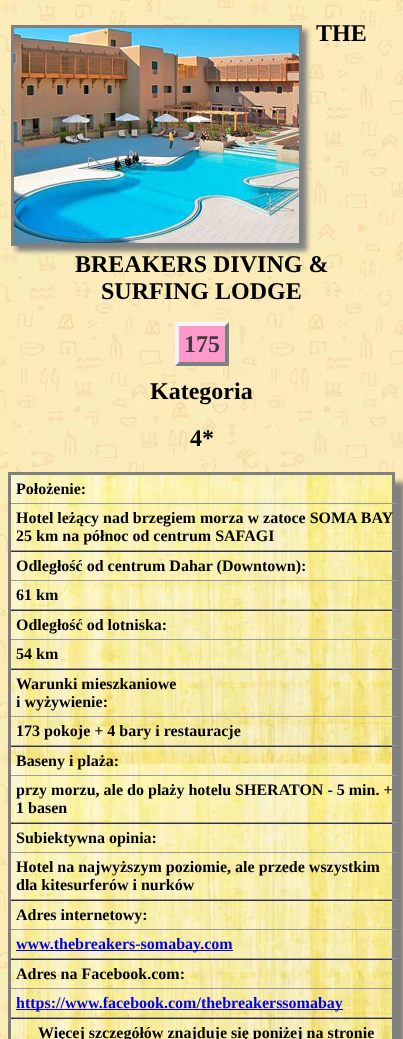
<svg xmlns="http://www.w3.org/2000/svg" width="403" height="1039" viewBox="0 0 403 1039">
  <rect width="100%" height="100%" fill="rgb(255,255,255)"/>
  <image x="0" y="0" width="403" height="1039" href="pic1.png"/>
  <rect x="16" y="30" width="291" height="221" fill="rgb(128,128,128)" filter="blur(2.5px)"/>
  <rect x="12.5" y="26.5" width="288" height="218" fill="none" stroke="rgb(128,128,128)" stroke-width="3"/>
  <image x="14" y="28" width="285" height="215" href="pic2.png"/>
  <g font-family="Liberation Serif" font-size="24" font-weight="bold" fill="rgb(0,0,0)">
    <text x="316" y="41">THE</text>
    <text x="75" y="272">BREAKERS DIVING &amp;</text>
    <text x="101" y="299">SURFING LODGE</text>
  </g>
  <rect x="175" y="322" width="54" height="44" fill="rgb(255,153,204)"/>
  <text x="184" y="352" font-family="Liberation Serif" font-size="24" font-weight="bold" fill="rgb(60,60,60)">175</text>
  <path d="M175 322H229L225 326H179Z" fill="rgb(244,244,244)"/>
  <path d="M229 322V366L225 362V326Z" fill="rgb(127,127,127)"/>
  <path d="M229 366H175L179 362H225Z" fill="rgb(127,127,127)"/>
  <path d="M175 366V322L179 326V362Z" fill="rgb(244,244,244)"/>
  <g font-family="Liberation Serif" font-size="24" font-weight="bold" fill="rgb(0,0,0)">
    <text x="150" y="399">Kategoria</text>
    <text x="190" y="446">4*</text>
  </g>
  <rect x="18" y="482" width="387" height="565" fill="rgb(128,128,128)" filter="blur(2.5px)"/>
  <image x="11" y="475" width="381" height="564" href="pic3.png"/>
  <rect x="8" y="472" width="387" height="3" fill="rgb(128,128,128)"/>
  <rect x="9" y="551" width="385" height="1" fill="rgb(51,51,51)"/>
  <rect x="9" y="610" width="385" height="1" fill="rgb(51,51,51)"/>
  <rect x="9" y="669" width="385" height="1" fill="rgb(51,51,51)"/>
  <rect x="9" y="746" width="385" height="1" fill="rgb(51,51,51)"/>
  <rect x="9" y="823" width="385" height="1" fill="rgb(51,51,51)"/>
  <rect x="9" y="900" width="385" height="1" fill="rgb(51,51,51)"/>
  <rect x="9" y="959" width="385" height="1" fill="rgb(51,51,51)"/>
  <rect x="9" y="1018" width="385" height="1" fill="rgb(51,51,51)"/>
  <rect x="392" y="472" width="3" height="547" fill="rgb(128,128,128)"/>
  <rect x="8" y="472" width="3" height="567" fill="rgb(128,128,128)"/>
  <rect x="11" y="503" width="386" height="1" fill="rgb(154,154,154)"/>
  <text x="16" y="494" font-family="Liberation Serif" font-size="16" font-weight="bold" fill="rgb(0,0,0)">Położenie:</text>
  <rect x="11" y="550" width="386" height="1" fill="rgb(154,154,154)"/>
  <g font-family="Liberation Serif" font-size="16" font-weight="bold" fill="rgb(0,0,0)">
    <text>
      <tspan x="16" y="523">Hotel leżący nad brzegiem morza w zatoce SOMA BAY</tspan>
      <tspan x="16" y="541">25 km na północ od centrum SAFAGI</tspan>
    </text>
  </g>
  <rect x="11" y="580" width="386" height="1" fill="rgb(154,154,154)"/>
  <text x="16" y="571" font-family="Liberation Serif" font-size="16" font-weight="bold" fill="rgb(0,0,0)">Odległość od centrum Dahar (Downtown):</text>
  <rect x="11" y="609" width="386" height="1" fill="rgb(154,154,154)"/>
  <text x="16" y="600" font-family="Liberation Serif" font-size="16" font-weight="bold" fill="rgb(0,0,0)">61 km</text>
  <rect x="11" y="639" width="386" height="1" fill="rgb(154,154,154)"/>
  <text x="16" y="630" font-family="Liberation Serif" font-size="16" font-weight="bold" fill="rgb(0,0,0)">Odległość od lotniska:</text>
  <rect x="11" y="668" width="386" height="1" fill="rgb(154,154,154)"/>
  <text x="16" y="659" font-family="Liberation Serif" font-size="16" font-weight="bold" fill="rgb(0,0,0)">54 km</text>
  <rect x="11" y="716" width="386" height="1" fill="rgb(154,154,154)"/>
  <g font-family="Liberation Serif" font-size="16" font-weight="bold" fill="rgb(0,0,0)">
    <text>
      <tspan x="16" y="689">Warunki mieszkaniowe</tspan>
      <tspan x="16" y="707">i wyżywienie:</tspan>
    </text>
  </g>
  <rect x="11" y="745" width="386" height="1" fill="rgb(154,154,154)"/>
  <text x="16" y="736" font-family="Liberation Serif" font-size="16" font-weight="bold" fill="rgb(0,0,0)">173 pokoje + 4 bary i restauracje</text>
  <rect x="11" y="775" width="386" height="1" fill="rgb(154,154,154)"/>
  <text x="16" y="766" font-family="Liberation Serif" font-size="16" font-weight="bold" fill="rgb(0,0,0)">Baseny i plaża:</text>
  <rect x="11" y="822" width="386" height="1" fill="rgb(154,154,154)"/>
  <g font-family="Liberation Serif" font-size="16" font-weight="bold" fill="rgb(0,0,0)">
    <text>
      <tspan x="16" y="795">przy morzu, ale do plaży hotelu SHERATON - 5 min. +</tspan>
      <tspan x="16" y="813">1 basen</tspan>
    </text>
  </g>
  <rect x="11" y="852" width="386" height="1" fill="rgb(154,154,154)"/>
  <text x="16" y="843" font-family="Liberation Serif" font-size="16" font-weight="bold" fill="rgb(0,0,0)">Subiektywna opinia:</text>
  <rect x="11" y="899" width="386" height="1" fill="rgb(154,154,154)"/>
  <g font-family="Liberation Serif" font-size="16" font-weight="bold" fill="rgb(0,0,0)">
    <text>
      <tspan x="16" y="872">Hotel na najwyższym poziomie, ale przede wszystkim</tspan>
      <tspan x="16" y="890">dla kitesurferów i nurków</tspan>
    </text>
  </g>
  <rect x="11" y="929" width="386" height="1" fill="rgb(154,154,154)"/>
  <text x="16" y="920" font-family="Liberation Serif" font-size="16" font-weight="bold" fill="rgb(0,0,0)">Adres internetowy:</text>
  <rect x="11" y="958" width="386" height="1" fill="rgb(154,154,154)"/>
  <rect x="16" y="950" width="217" height="1" fill="rgb(0,0,238)"/>
  <text x="16" y="949" font-family="Liberation Serif" font-size="16" font-weight="bold" fill="rgb(0,0,238)">www.thebreakers-somabay.com</text>
  <rect x="11" y="988" width="381" height="1" fill="rgb(154,154,154)"/>
  <text x="16" y="979" font-family="Liberation Serif" font-size="16" font-weight="bold" fill="rgb(0,0,0)">Adres na Facebook.com:</text>
  <rect x="11" y="1017" width="381" height="1" fill="rgb(154,154,154)"/>
  <rect x="16" y="1009" width="327" height="1" fill="rgb(0,0,238)"/>
  <text x="16" y="1008" font-family="Liberation Serif" font-size="16" font-weight="bold" fill="rgb(0,0,238)">https://www.facebook.com/thebreakerssomabay</text>
  <text x="38" y="1038" font-family="Liberation Serif" font-size="16" font-weight="bold" fill="rgb(0,0,0)">Więcej szczegółów znajduje się poniżej na stronie</text>
</svg>
